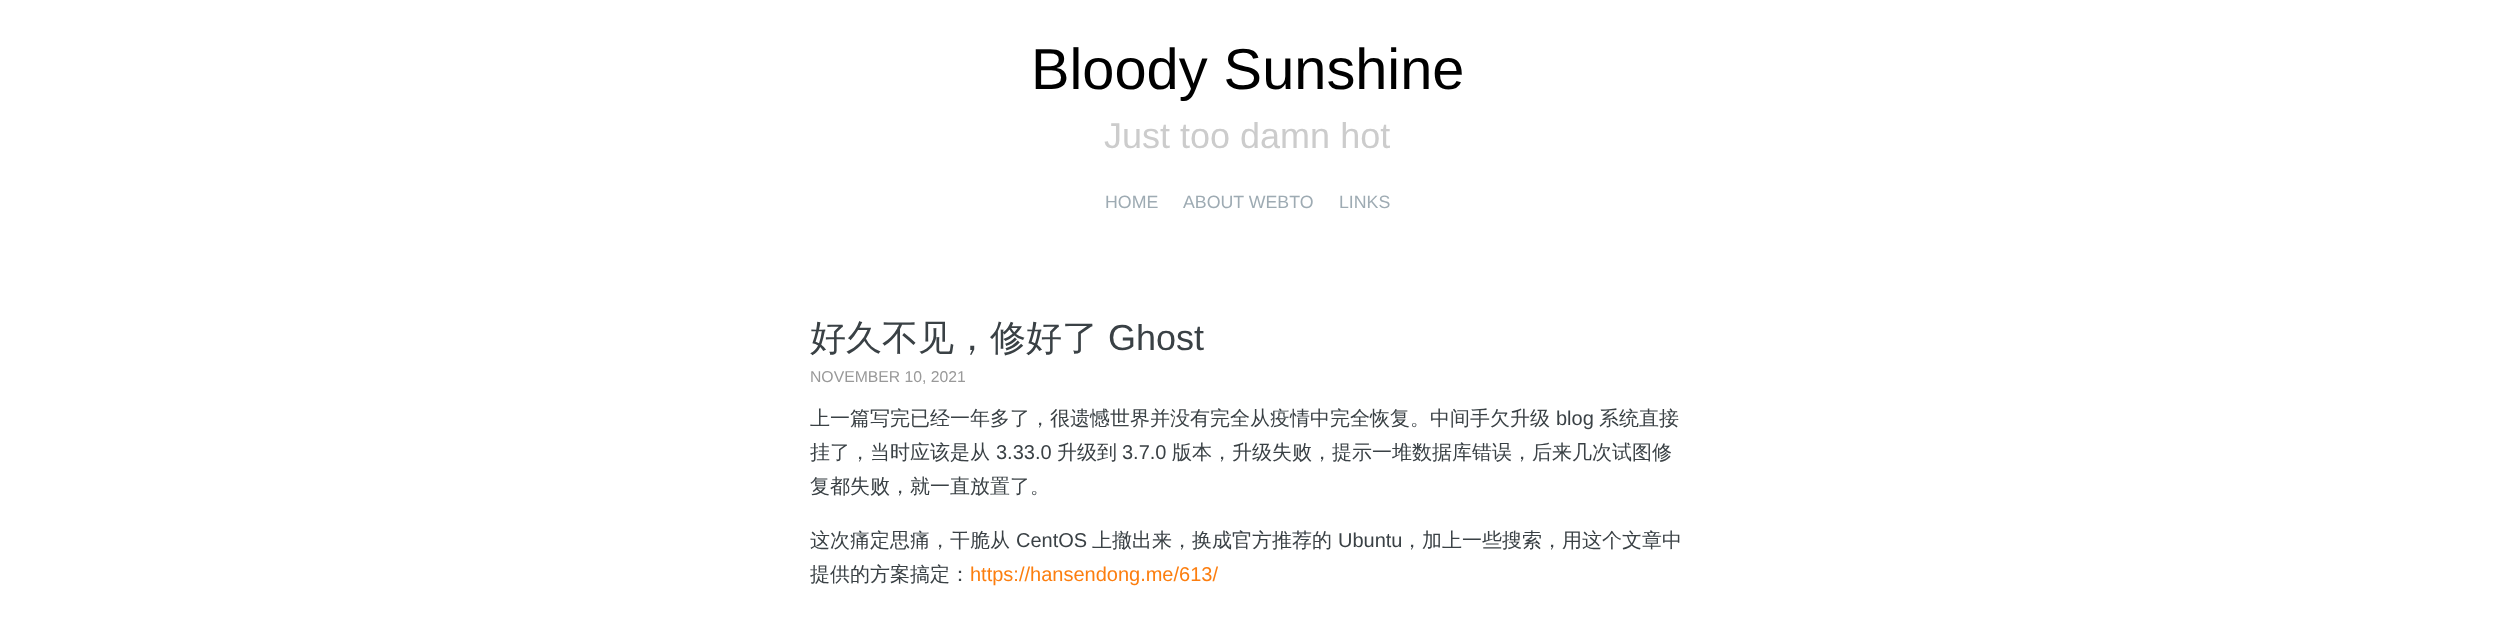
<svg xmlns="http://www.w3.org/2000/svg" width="2494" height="625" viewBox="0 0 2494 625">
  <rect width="100%" height="100%" fill="rgb(255,255,255)"/>
  <text x="1031" y="89" font-family="Liberation Sans" font-size="57.75" fill="rgb(0,0,0)">Bloody Sunshine</text>
  <text x="1104" y="148" font-family="Liberation Sans" font-size="36" fill="rgb(204,204,204)">Just too damn hot</text>
  <g font-family="Liberation Sans" font-size="17.75" fill="rgb(158,171,179)">
    <text x="1105" y="208">HOME</text>
    <text x="1183" y="208">ABOUT WEBTO</text>
    <text x="1339" y="208">LINKS</text>
  </g>
  <text x="810" y="350" font-family="WenQuanYi Zen Hei" font-size="36" font-weight="500" fill="rgb(58,65,69)">好久不见，修好了</text>
  <text x="1108" y="350" font-family="Liberation Sans" font-size="36" fill="rgb(58,65,69)">Ghost</text>
  <text x="810" y="382" font-family="Liberation Sans" font-size="15.75" fill="rgb(153,153,153)">NOVEMBER 10, 2021</text>
  <text x="810" y="425" font-family="WenQuanYi Zen Hei" font-size="20" font-weight="500" fill="rgb(58,65,69)">上一篇写完已经一年多了，很遗憾世界并没有完全从疫情中完全恢复。中间手欠升级</text>
  <text x="1556" y="425" font-family="Liberation Sans" font-size="20" fill="rgb(58,65,69)">blog</text>
  <g font-family="WenQuanYi Zen Hei" font-size="20" font-weight="500" fill="rgb(58,65,69)">
    <text x="1599" y="425">系统直接</text>
    <text x="810" y="459">挂了，当时应该是从</text>
  </g>
  <text x="996" y="459" font-family="Liberation Sans" font-size="20" fill="rgb(58,65,69)">3.33.0</text>
  <text x="1057" y="459" font-family="WenQuanYi Zen Hei" font-size="20" font-weight="500" fill="rgb(58,65,69)">升级到</text>
  <text x="1122" y="459" font-family="Liberation Sans" font-size="20" fill="rgb(58,65,69)">3.7.0</text>
  <g font-family="WenQuanYi Zen Hei" font-size="20" font-weight="500" fill="rgb(58,65,69)">
    <text x="1172" y="459">版本，升级失败，提示一堆数据库错误，后来几次试图修</text>
    <text x="810" y="493">复都失败，就一直放置了。</text>
    <text x="810" y="547">这次痛定思痛，干脆从</text>
  </g>
  <text x="1016" y="547" font-family="Liberation Sans" font-size="20" fill="rgb(58,65,69)">CentOS</text>
  <text x="1092" y="547" font-family="WenQuanYi Zen Hei" font-size="20" font-weight="500" fill="rgb(58,65,69)">上撤出来，换成官方推荐的</text>
  <text x="1338" y="547" font-family="Liberation Sans" font-size="20" fill="rgb(58,65,69)">Ubuntu</text>
  <g font-family="WenQuanYi Zen Hei" font-size="20" font-weight="500" fill="rgb(58,65,69)">
    <text x="1402" y="547">，加上一些搜索，用这个文章中</text>
    <text x="810" y="581">提供的方案搞定：</text>
  </g>
  <text x="970" y="581" font-family="Liberation Sans" font-size="20" fill="rgb(252,126,15)">https://hansendong.me/613/</text>
</svg>
